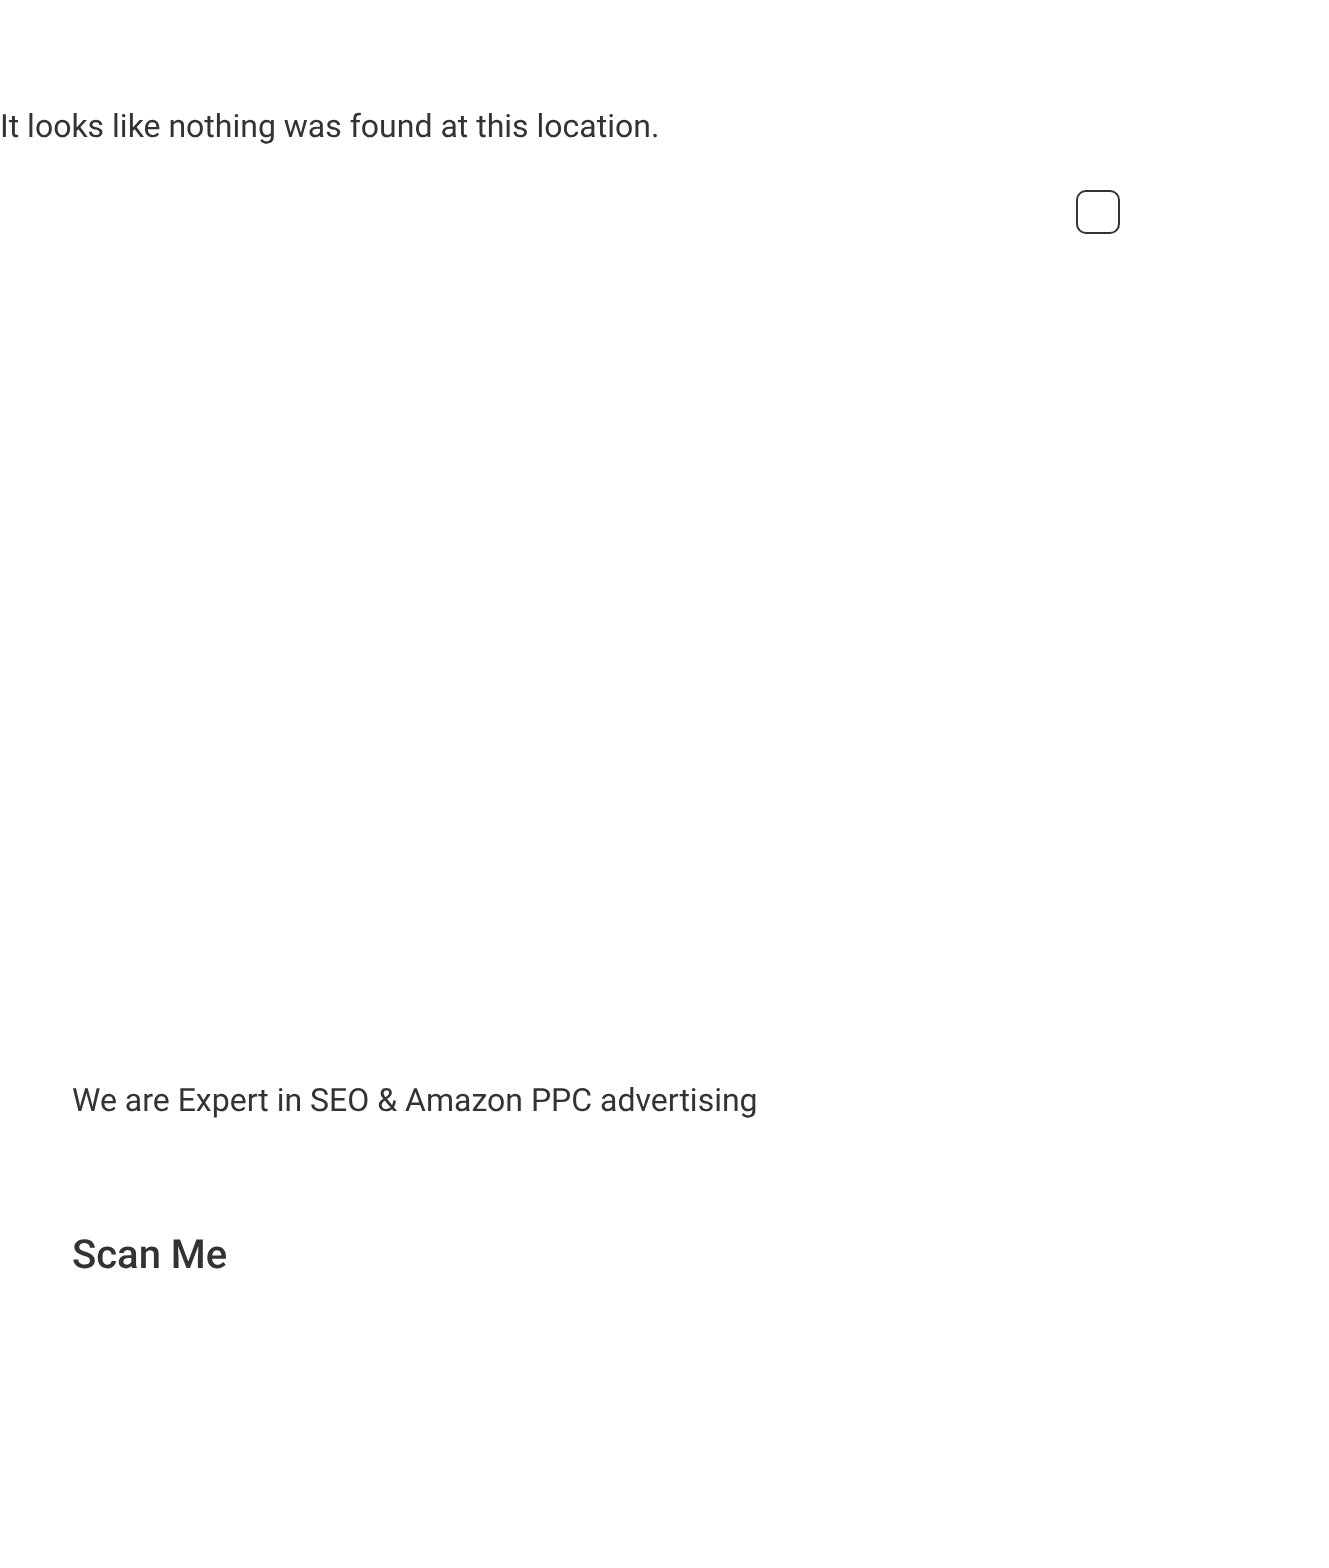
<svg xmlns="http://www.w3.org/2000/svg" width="1329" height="1568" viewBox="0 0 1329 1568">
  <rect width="100%" height="100%" fill="rgb(255,255,255)"/>
  <text x="0" y="137" font-family="Roboto" font-size="32" fill="rgb(51,51,51)">It looks like nothing was found at this location.</text>
  <rect x="1077" y="191" width="42" height="42" rx="9" fill="none" stroke="rgb(51,51,51)" stroke-width="2"/>
  <text x="72" y="1111" font-family="Roboto" font-size="32" fill="rgb(51,51,51)">We are Expert in SEO &amp; Amazon PPC advertising</text>
  <text x="72" y="1268" font-family="Roboto" font-size="40" font-weight="500" fill="rgb(51,51,51)">Scan Me</text>
</svg>
